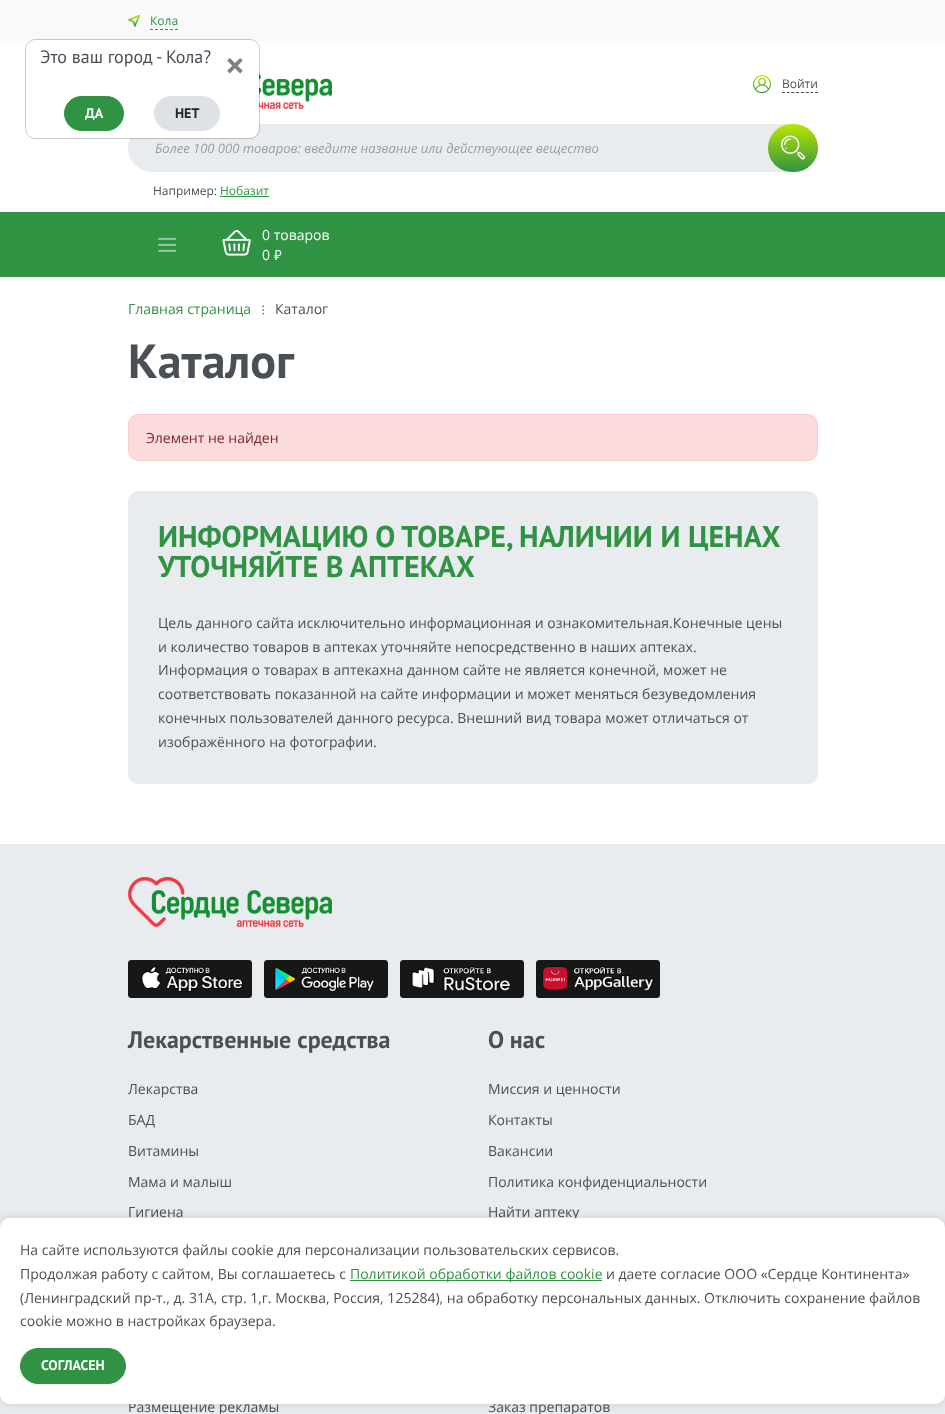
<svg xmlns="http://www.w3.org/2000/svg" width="945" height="1414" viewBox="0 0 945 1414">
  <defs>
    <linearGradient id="g1" gradientUnits="userSpaceOnUse" x1="793" y1="124" x2="793" y2="172"><stop offset="0" stop-color="rgb(185,231,0)"/><stop offset="1" stop-color="rgb(47,147,67)"/></linearGradient>
  </defs>
  <rect width="100%" height="100%" fill="rgb(255,255,255)"/>
  <rect x="0" y="0" width="945" height="41" fill="rgb(248,249,250)"/>
  <rect x="128" y="124" width="690" height="48" rx="24" fill="rgb(233,236,239)"/>
  <rect x="26" y="40" width="233" height="98" rx="9" fill="rgb(255,255,255)"/>
  <image x="259" y="73" width="73" height="36" href="pic2.png"/>
  <rect x="25.5" y="39.5" width="234" height="99" rx="9.5" fill="none" stroke="rgba(0,0,0,0.2)"/>
  <text x="40" y="63" font-family="PT Sans" font-size="18" fill="rgb(73,80,87)">Это ваш город - Кола?</text>
  <text x="225" y="78" font-family="Open Sans" font-size="35" font-weight="bold" fill="rgb(128,128,128)">×</text>
  <rect x="64.5" y="96.5" width="59" height="34" rx="17" fill="rgb(47,147,67)" stroke="rgb(47,147,67)"/>
  <text x="85" y="118" font-family="PT Sans" font-size="14" font-weight="bold" fill="rgb(255,255,255)">ДА</text>
  <rect x="154.5" y="96.5" width="65" height="34" rx="17" fill="rgb(222,226,230)" stroke="rgb(222,226,230)"/>
  <text x="175" y="118" font-family="PT Sans" font-size="14" font-weight="bold" fill="rgb(33,37,41)">НЕТ</text>
  <image x="128" y="14" width="12" height="13" href="pic1.png"/>
  <text x="150" y="25" font-family="Open Sans" font-size="12" fill="rgb(47,147,67)">Кола</text>
  <path d="M150 29.5H178" fill="none" stroke="rgb(47,147,67)" stroke-dasharray="3 2"/>
  <image x="753" y="75" width="18" height="19" href="pic3.png"/>
  <text x="782" y="88" font-family="Open Sans" font-size="12" fill="rgb(73,80,87)">Войти</text>
  <path d="M782 92.5H818" fill="none" stroke="rgb(73,80,87)" stroke-dasharray="3 1.71"/>
  <text x="155" y="153" font-family="Open Sans" font-size="13" font-style="italic" fill="rgb(153,158,163)">Более 100 000 товаров: введите название или действующее вещество</text>
  <rect x="768" y="124" width="50" height="48" rx="24" fill="url(#g1)"/>
  <image x="781" y="135" width="24" height="25" href="pic4.png"/>
  <text x="153" y="195" font-family="Open Sans" font-size="12" fill="rgb(73,80,87)">Например:</text>
  <text x="220" y="195" font-family="Open Sans" font-size="12" fill="rgb(47,147,67)">Нобазит</text>
  <rect x="220" y="196" width="49" height="1" fill="rgb(47,147,67)"/>
  <rect x="0" y="212" width="945" height="65" fill="rgb(47,147,67)"/>
  <image x="158" y="237" width="19" height="15" href="pic5.png"/>
  <image x="222" y="229" width="29" height="27" href="pic6.png"/>
  <g font-family="Open Sans" font-size="14" fill="rgb(255,255,255)">
    <text>
      <tspan x="262" y="240">0 товаров</tspan>
      <tspan x="262" y="260">0</tspan>
    </text>
  </g>
  <text x="274" y="260" font-family="PT Sans" font-size="14" fill="rgb(255,255,255)">₽</text>
  <text x="128" y="314" font-family="Open Sans" font-size="14" fill="rgb(47,147,67)">Главная страница</text>
  <image x="262" y="305" width="3" height="10" href="pic7.png"/>
  <text x="275" y="314" font-family="Open Sans" font-size="14" fill="rgb(73,80,87)">Каталог</text>
  <text x="128" y="378" font-family="PT Sans" font-size="48" font-weight="bold" fill="rgb(73,80,87)">Каталог</text>
  <rect x="128.5" y="414.5" width="689" height="46" rx="9.5" fill="rgb(252,219,221)" stroke="rgb(251,205,207)"/>
  <text x="146" y="443" font-family="Open Sans" font-size="14" fill="rgb(124,39,44)">Элемент не найден</text>
  <rect x="128" y="491" width="690" height="293" rx="10" fill="rgb(233,236,239)"/>
  <g font-family="PT Sans" font-size="30" font-weight="bold" fill="rgb(47,147,67)">
    <text>
      <tspan x="158" y="547">ИНФОРМАЦИЮ О ТОВАРЕ, НАЛИЧИИ И ЦЕНАХ</tspan>
      <tspan x="158" y="577">УТОЧНЯЙТЕ В АПТЕКАХ</tspan>
    </text>
  </g>
  <g font-family="Open Sans" font-size="14" fill="rgb(73,80,87)">
    <text>
      <tspan x="158" y="628">Цель данного сайта исключительно информационная и ознакомительная.Конечные цены</tspan>
      <tspan x="158" y="652">и количество товаров в аптеках уточняйте непосредственно в наших аптеках.</tspan>
      <tspan x="158" y="675">Информация о товарах в аптекахна данном сайте не является конечной, может не</tspan>
      <tspan x="158" y="699">соответствовать показанной на сайте информации и может меняться безуведомления</tspan>
      <tspan x="158" y="723">конечных пользователей данного ресурса. Внешний вид товара может отличаться от</tspan>
      <tspan x="158" y="747">изображённого на фотографии.</tspan>
    </text>
  </g>
  <rect x="0" y="844" width="945" height="570" fill="rgb(233,236,239)"/>
  <image x="128" y="877" width="204" height="50" href="pic8.png"/>
  <image x="128" y="960" width="124" height="38" href="pic9.png"/>
  <image x="264" y="960" width="124" height="38" href="pic10.png"/>
  <image x="400" y="960" width="124" height="38" href="pic11.png"/>
  <image x="536" y="960" width="124" height="38" href="pic12.png"/>
  <text x="128" y="1048" font-family="PT Sans" font-size="24" font-weight="bold" fill="rgb(73,80,87)">Лекарственные средства</text>
  <g font-family="Open Sans" font-size="14" fill="rgb(73,80,87)">
    <text x="128" y="1094">Лекарства</text>
    <text x="128" y="1125">БАД</text>
    <text x="128" y="1156">Витамины</text>
    <text x="128" y="1187">Мама и малыш</text>
    <text x="128" y="1217">Гигиена</text>
  </g>
  <text x="488" y="1048" font-family="PT Sans" font-size="24" font-weight="bold" fill="rgb(73,80,87)">О нас</text>
  <g font-family="Open Sans" font-size="14" fill="rgb(73,80,87)">
    <text x="488" y="1094">Миссия и ценности</text>
    <text x="488" y="1125">Контакты</text>
    <text x="488" y="1156">Вакансии</text>
    <text x="488" y="1187">Политика конфиденциальности</text>
    <text x="488" y="1217">Найти аптеку</text>
    <text x="128" y="1412">Размещение рекламы</text>
    <text x="488" y="1412">Заказ препаратов</text>
  </g>
  <rect x="0" y="1218" width="945" height="186" rx="10" fill="rgba(0,0,0,0.13)" filter="blur(5px)"/>
  <rect x="0" y="1218" width="945" height="186" rx="10" fill="rgb(255,255,255)"/>
  <g font-family="Open Sans" font-size="14" fill="rgb(73,80,87)">
    <text>
      <tspan x="20" y="1255">На сайте используются файлы cookie для персонализации пользовательских сервисов.</tspan>
      <tspan x="20" y="1279">Продолжая работу с сайтом, Вы соглашаетесь с</tspan>
    </text>
  </g>
  <rect x="350" y="1280" width="252" height="1" fill="rgb(47,147,67)"/>
  <text x="350" y="1279" font-family="Open Sans" font-size="14" fill="rgb(47,147,67)">Политикой обработки файлов cookie</text>
  <g font-family="Open Sans" font-size="14" fill="rgb(73,80,87)">
    <text x="606" y="1279">и даете согласие ООО «Сердце Континента»</text>
    <text>
      <tspan x="20" y="1303">(Ленинградский пр-т., д. 31А, стр. 1,г. Москва, Россия, 125284), на обработку персональных данных. Отключить сохранение файлов</tspan>
      <tspan x="20" y="1326">cookie можно в настройках браузера.</tspan>
    </text>
  </g>
  <rect x="20.5" y="1348.5" width="105" height="35" rx="17.5" fill="rgb(47,147,67)" stroke="rgb(47,147,67)"/>
  <text x="41" y="1370" font-family="PT Sans" font-size="14" font-weight="bold" fill="rgb(255,255,255)">СОГЛАСЕН</text>
</svg>
